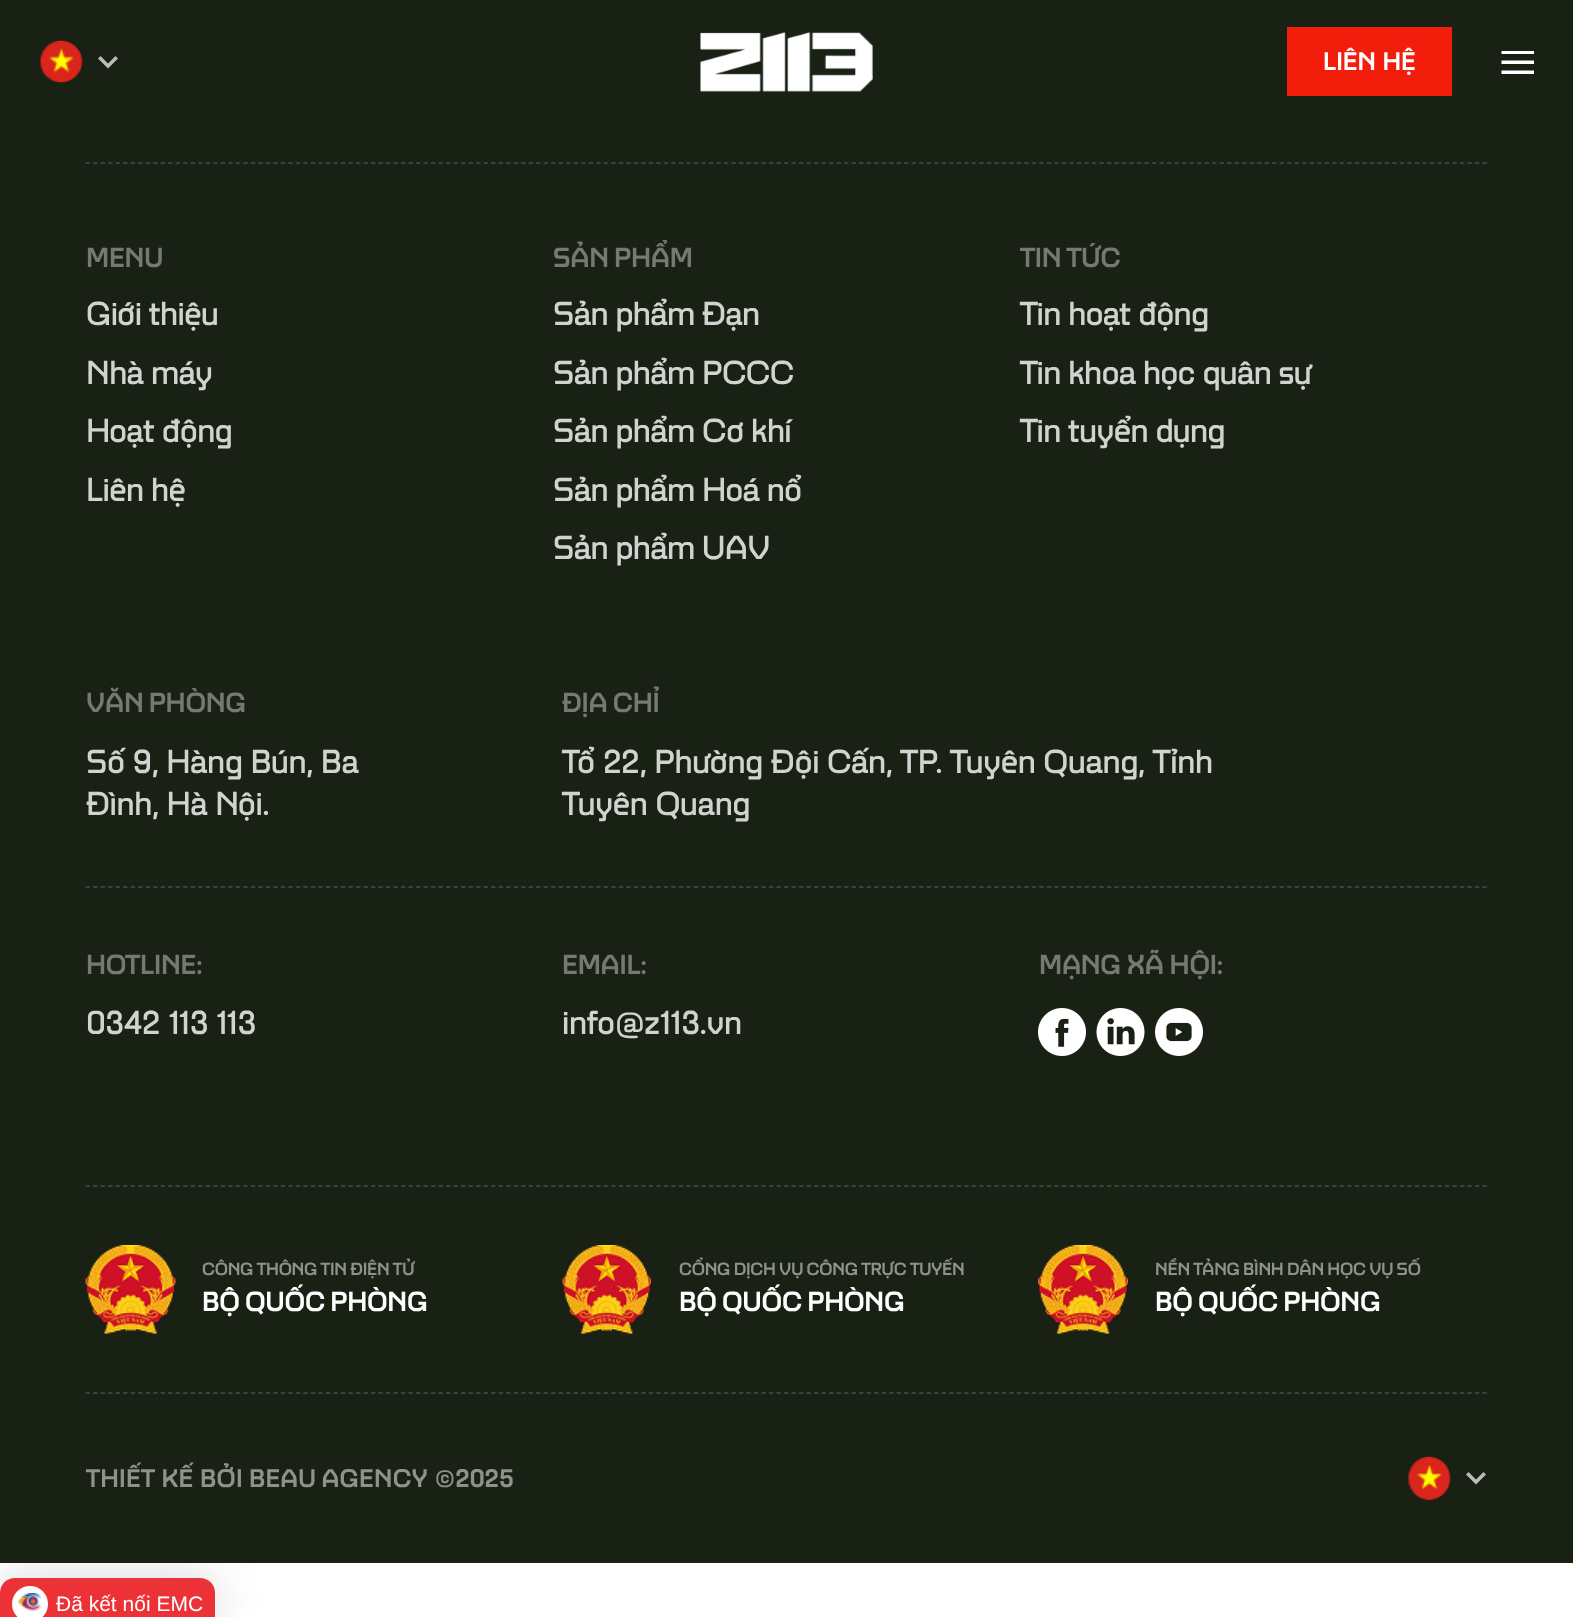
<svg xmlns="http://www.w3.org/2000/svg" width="1573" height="1617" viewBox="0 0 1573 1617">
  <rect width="100%" height="100%" fill="rgb(255,255,255)"/>
  <rect x="0" y="1577" width="215" height="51" rx="15" fill="rgba(0,0,0,0.15)" filter="blur(22.5px)"/>
  <rect x="0" y="0" width="1573" height="1563" fill="rgb(24,33,20)"/>
  <image x="39" y="40" width="44" height="43" href="pic1.png"/>
  <path d="M108 63.5L100.5 56L98 58.5L108 68.5L118 58.5L115.5 56Z" fill="rgb(186,188,185)"/>
  <image x="700" y="31" width="173" height="61" href="pic2.png"/>
  <rect x="1287" y="27" width="165" height="69" fill="rgb(242,29,10)"/>
  <text x="1323" y="70" font-family="'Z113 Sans'" font-size="22.25" font-weight="500" fill="rgb(255,255,255)">LIÊN HỆ</text>
  <path d="M1501.5 60.5H1534V64H1501.5ZM1501.5 51H1534V54H1501.5ZM1501.5 70.5H1534V74H1501.5Z" fill="rgb(255,255,255)"/>
  <path d="M85.5 163H1488" fill="none" stroke="rgb(70,77,67)" stroke-width="1.5" stroke-dasharray="4.5 3.01"/>
  <text x="86" y="267" font-family="'Z113 Sans'" font-size="24" font-weight="500" letter-spacing="-0.25" fill="rgb(116,122,114)">MENU</text>
  <g font-family="'Z113 Sans'" font-size="29.1" letter-spacing="-0.6" fill="rgb(209,211,208)">
    <text x="86" y="325">Giới thiệu</text>
    <text>
      <tspan x="86" y="384">Nhà máy</tspan>
      <tspan x="86" y="442">Hoạt động</tspan>
    </text>
    <text x="86" y="501">Liên hệ</text>
  </g>
  <text x="553" y="267" word-spacing="-1" font-family="'Z113 Sans'" font-size="24" font-weight="500" letter-spacing="-0.25" fill="rgb(116,122,114)">SẢN PHẨM</text>
  <g font-family="'Z113 Sans'" font-size="29.1" letter-spacing="-0.6" fill="rgb(209,211,208)">
    <text x="553" y="325">Sản phẩm Đạn</text>
    <text>
      <tspan x="553" y="384">Sản phẩm PCCC</tspan>
      <tspan x="553" y="442">Sản phẩm Cơ khí</tspan>
    </text>
    <text>
      <tspan x="553" y="501">Sản phẩm Hoá nổ</tspan>
      <tspan x="553" y="559">Sản phẩm UAV</tspan>
    </text>
  </g>
  <text x="1020" y="267" word-spacing="-1" font-family="'Z113 Sans'" font-size="24" font-weight="500" letter-spacing="-0.25" fill="rgb(116,122,114)">TIN TỨC</text>
  <g font-family="'Z113 Sans'" font-size="29.1" letter-spacing="-0.6" fill="rgb(209,211,208)">
    <text x="1020" y="325">Tin hoạt động</text>
    <text>
      <tspan x="1020" y="384">Tin khoa học quân sự</tspan>
      <tspan x="1020" y="442">Tin tuyển dụng</tspan>
    </text>
  </g>
  <text x="86" y="712" word-spacing="-1" font-family="'Z113 Sans'" font-size="24" font-weight="500" letter-spacing="-0.25" fill="rgb(116,122,114)">VĂN PHÒNG</text>
  <g font-family="'Z113 Sans'" font-size="29.1" letter-spacing="-0.3" fill="rgb(209,211,208)">
    <text>
      <tspan x="86" y="773">Số 9, Hàng Bún, Ba</tspan>
      <tspan x="86" y="815">Đình, Hà Nội.</tspan>
    </text>
  </g>
  <text x="562" y="712" word-spacing="-1" font-family="'Z113 Sans'" font-size="24" font-weight="500" letter-spacing="-0.25" fill="rgb(116,122,114)">ĐỊA CHỈ</text>
  <g font-family="'Z113 Sans'" font-size="29.1" letter-spacing="-0.3" fill="rgb(209,211,208)">
    <text>
      <tspan x="562" y="773">Tổ 22, Phường Đội Cấn, TP. Tuyên Quang, Tỉnh</tspan>
      <tspan x="562" y="815">Tuyên Quang</tspan>
    </text>
  </g>
  <path d="M85.5 887H1488" fill="none" stroke="rgb(70,77,67)" stroke-width="1.5" stroke-dasharray="4.5 3.01"/>
  <text x="86" y="974" font-family="'Z113 Sans'" font-size="24" font-weight="500" letter-spacing="-0.25" fill="rgb(116,122,114)">HOTLINE:</text>
  <text x="86" y="1034" font-family="'Z113 Sans'" font-size="29.1" letter-spacing="-0.3" fill="rgb(209,211,208)">0342 113 113</text>
  <text x="562" y="974" font-family="'Z113 Sans'" font-size="24" font-weight="500" letter-spacing="-0.25" fill="rgb(116,122,114)">EMAIL:</text>
  <text x="562" y="1034" font-family="'Z113 Sans'" font-size="29.1" letter-spacing="-0.3" fill="rgb(209,211,208)">info@z113.vn</text>
  <text x="1039" y="974" word-spacing="-0.5" font-family="'Z113 Sans'" font-size="24" font-weight="500" letter-spacing="-0.25" fill="rgb(116,122,114)">MẠNG XÃ HỘI:</text>
  <image x="1038" y="1008" width="48" height="48" href="pic3.png"/>
  <image x="1096" y="1008" width="49" height="48" href="pic4.png"/>
  <image x="1155" y="1008" width="48" height="48" href="pic5.png"/>
  <path d="M85.5 1186H1488" fill="none" stroke="rgb(70,77,67)" stroke-width="1.5" stroke-dasharray="4.5 3.01"/>
  <path d="M85.5 1393H1488" fill="none" stroke="rgb(70,77,67)" stroke-width="1.5" stroke-dasharray="4.5 3.01"/>
  <image x="85" y="1245" width="91" height="89" href="pic6.png"/>
  <text x="202" y="1275" word-spacing="-0.5" font-family="'Z113 Sans'" font-size="15.4" font-weight="500" letter-spacing="-0.25" fill="rgb(142,146,140)">CÔNG THÔNG TIN ĐIỆN TỬ</text>
  <text x="202" y="1311" word-spacing="-1" font-family="'Z113 Sans'" font-size="24" font-weight="500" letter-spacing="-0.25" fill="rgb(255,255,255)">BỘ QUỐC PHÒNG</text>
  <image x="562" y="1245" width="89" height="89" href="pic7.png"/>
  <text x="679" y="1275" word-spacing="-0.5" font-family="'Z113 Sans'" font-size="15.4" font-weight="500" letter-spacing="-0.25" fill="rgb(142,146,140)">CỔNG DỊCH VỤ CÔNG TRỰC TUYẾN</text>
  <text x="679" y="1311" word-spacing="-1" font-family="'Z113 Sans'" font-size="24" font-weight="500" letter-spacing="-0.25" fill="rgb(255,255,255)">BỘ QUỐC PHÒNG</text>
  <image x="1038" y="1245" width="90" height="89" href="pic8.png"/>
  <text x="1155" y="1275" word-spacing="-0.5" font-family="'Z113 Sans'" font-size="15.4" font-weight="500" letter-spacing="-0.25" fill="rgb(142,146,140)">NỀN TẢNG BÌNH DÂN HỌC VỤ SỐ</text>
  <text x="1155" y="1311" word-spacing="-1" font-family="'Z113 Sans'" font-size="24" font-weight="500" letter-spacing="-0.25" fill="rgb(255,255,255)">BỘ QUỐC PHÒNG</text>
  <g font-family="'Z113 Sans'" font-size="22.25" font-weight="500" letter-spacing="0.25" fill="rgb(142,146,140)">
    <text x="86" y="1487">THIẾT KẾ BỞI</text>
    <text x="249" y="1487" word-spacing="-1">BEAU AGENCY</text>
    <text x="435" y="1487">©2025</text>
  </g>
  <image x="1407" y="1456" width="44" height="44" href="pic9.png"/>
  <path d="M1476 1479.5L1468.5 1472L1466 1474.5L1476 1484.5L1486 1474.5L1483.5 1472Z" fill="rgb(186,188,185)"/>
  <path d="M15 1578H200C208.5 1578 215 1584.5 215 1593V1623H0V1593C0 1584.5 6.5 1578 15 1578Z" fill="rgb(236,50,55)"/>
  <circle cx="30" cy="1604" r="18" fill="rgb(255,255,255)"/>
  <image x="18" y="1593" width="24" height="19" href="pic10.png"/>
  <text x="56" y="1611" font-family="Liberation Sans" font-size="21" fill="rgb(255,255,255)">Đã kết nối EMC</text>
</svg>
